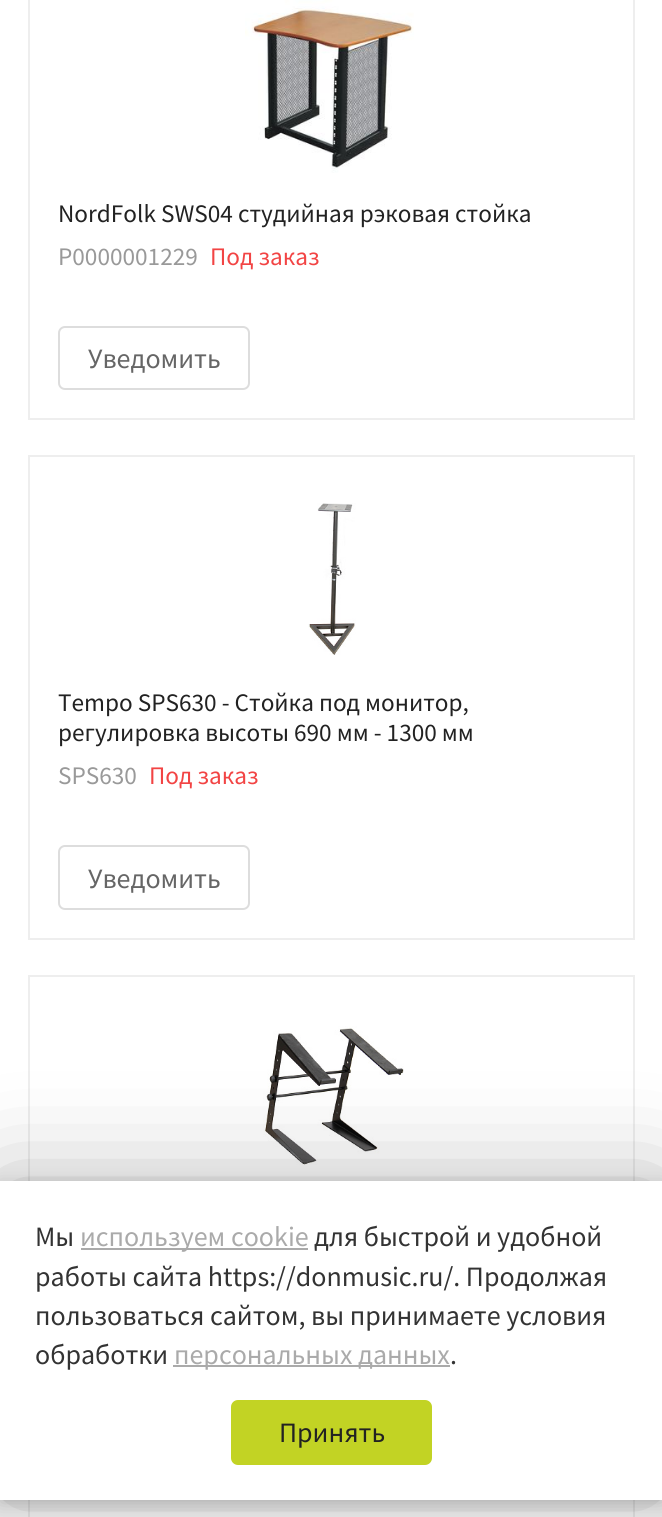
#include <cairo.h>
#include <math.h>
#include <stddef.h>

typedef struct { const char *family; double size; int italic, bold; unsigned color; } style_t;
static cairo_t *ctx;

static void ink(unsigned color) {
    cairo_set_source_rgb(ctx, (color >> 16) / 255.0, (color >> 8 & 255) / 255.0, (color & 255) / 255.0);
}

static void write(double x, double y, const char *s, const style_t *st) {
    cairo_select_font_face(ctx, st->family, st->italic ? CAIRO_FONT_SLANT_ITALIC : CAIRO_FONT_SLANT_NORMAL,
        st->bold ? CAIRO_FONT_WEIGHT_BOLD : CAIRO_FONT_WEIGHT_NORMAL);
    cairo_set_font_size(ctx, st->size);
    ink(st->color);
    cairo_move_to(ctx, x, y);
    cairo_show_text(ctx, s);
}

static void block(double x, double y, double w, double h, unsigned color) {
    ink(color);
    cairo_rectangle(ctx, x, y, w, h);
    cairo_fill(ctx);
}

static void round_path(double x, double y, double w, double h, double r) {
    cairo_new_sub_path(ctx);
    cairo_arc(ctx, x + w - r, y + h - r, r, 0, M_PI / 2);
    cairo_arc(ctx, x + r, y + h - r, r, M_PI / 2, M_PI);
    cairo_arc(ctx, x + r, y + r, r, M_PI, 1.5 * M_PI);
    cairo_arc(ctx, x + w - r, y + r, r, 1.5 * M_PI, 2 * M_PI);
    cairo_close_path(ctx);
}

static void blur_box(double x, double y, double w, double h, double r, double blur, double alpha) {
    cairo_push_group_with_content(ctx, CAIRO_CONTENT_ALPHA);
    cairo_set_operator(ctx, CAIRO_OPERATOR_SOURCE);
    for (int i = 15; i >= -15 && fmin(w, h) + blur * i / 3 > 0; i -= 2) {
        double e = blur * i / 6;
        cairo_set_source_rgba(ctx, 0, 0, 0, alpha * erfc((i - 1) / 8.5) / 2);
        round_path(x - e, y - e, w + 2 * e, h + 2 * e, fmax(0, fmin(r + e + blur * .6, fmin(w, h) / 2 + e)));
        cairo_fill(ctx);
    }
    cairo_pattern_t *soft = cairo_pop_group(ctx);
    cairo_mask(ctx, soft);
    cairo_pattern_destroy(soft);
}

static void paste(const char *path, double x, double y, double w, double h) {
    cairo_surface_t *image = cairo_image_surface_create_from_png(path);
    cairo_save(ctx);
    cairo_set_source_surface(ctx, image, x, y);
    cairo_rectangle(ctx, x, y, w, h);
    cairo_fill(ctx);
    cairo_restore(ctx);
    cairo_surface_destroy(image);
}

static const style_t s1 = {"Source Sans Pro", 25.25, 0, 0, 0x222222};
static const style_t s2 = {"Source Sans Pro", 25.25, 0, 0, 0x999999};
static const style_t s3 = {"Source Sans Pro", 25.25, 0, 0, 0xf24444};
static const style_t s4 = {"Source Sans Pro", 28, 0, 0, 0x666666};
static const style_t s5 = {"Source Sans Pro", 28, 0, 0, 0x333333};
static const style_t s6 = {"Source Sans Pro", 28, 0, 0, 0xaaaaaa};
static const style_t s7 = {"Source Sans Pro", 28, 0, 0, 0x222222};

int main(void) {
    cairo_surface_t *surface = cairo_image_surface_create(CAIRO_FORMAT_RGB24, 662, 1517);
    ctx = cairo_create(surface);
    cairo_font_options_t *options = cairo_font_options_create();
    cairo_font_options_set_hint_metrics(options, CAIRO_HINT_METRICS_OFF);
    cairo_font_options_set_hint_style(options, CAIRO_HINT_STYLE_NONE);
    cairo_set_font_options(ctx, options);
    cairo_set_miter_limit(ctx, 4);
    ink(0xffffff);
    cairo_paint(ctx);
    cairo_rectangle(ctx, 29, -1, 605, 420);
    ink(0xeeeeee);
    cairo_stroke(ctx);
    paste("pic1.png", 245, 0, 169, 173);
    write(58, 222, "NordFolk SWS04 студийная рэковая стойка", &s1);
    write(58, 265, "Р0000001229", &s2);
    write(210, 265, "Под заказ", &s3);
    round_path(59, 327, 190, 62, 6);
    ink(0xdddddd);
    cairo_stroke(ctx);
    write(88, 368, "Уведомить", &s4);
    cairo_rectangle(ctx, 29, 456, 605, 483);
    ink(0xeeeeee);
    cairo_stroke(ctx);
    paste("pic2.png", 308, 503, 48, 152);
    write(58, 711, "Tempo SPS630 - Стойка под монитор,", &s1);
    write(58, 741, "регулировка высоты 690 мм - 1300 мм", &s1);
    write(58, 784, "SPS630", &s2);
    write(149, 784, "Под заказ", &s3);
    round_path(59, 846, 190, 63, 6);
    ink(0xdddddd);
    cairo_stroke(ctx);
    write(88, 888, "Уведомить", &s4);
    cairo_rectangle(ctx, 29, 976, 605, 483);
    ink(0xeeeeee);
    cairo_stroke(ctx);
    paste("pic3.png", 263, 1026, 141, 139);
    cairo_rectangle(ctx, 29, 1496, 605, 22);
    cairo_stroke(ctx);
    ink(0x000000);
    blur_box(0, 1185, 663, 318, 0, 9, 0.2);
    blur_box(0, 1185, 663, 318, 0, 52.5, 0.3);
    block(0, 1181, 662, 319, 0xffffff);
    write(35, 1246, "Мы", &s5);
    block(81, 1248, 227, 2, 0xaaaaaa);
    write(80, 1246, "используем cookie", &s6);
    write(314, 1246, "для быстрой и удобной", &s5);
    write(35, 1286, "работы сайта https://donmusic.ru/. Продолжая", &s5);
    write(35, 1325, "пользоваться сайтом, вы принимаете условия", &s5);
    write(35, 1364, "обработки", &s5);
    block(173, 1365, 277, 2, 0xaaaaaa);
    write(174, 1364, "персональных данных", &s6);
    write(450, 1364, ".", &s5);
    ink(0xc2d324);
    round_path(232, 1401, 199, 63, 6);
    cairo_fill_preserve(ctx);
    cairo_stroke(ctx);
    write(279, 1442, "Принять", &s7);
    cairo_surface_write_to_png(surface, "screenshot.png");
    cairo_font_options_destroy(options);
    cairo_destroy(ctx);
    cairo_surface_destroy(surface);
    return 0;
}
